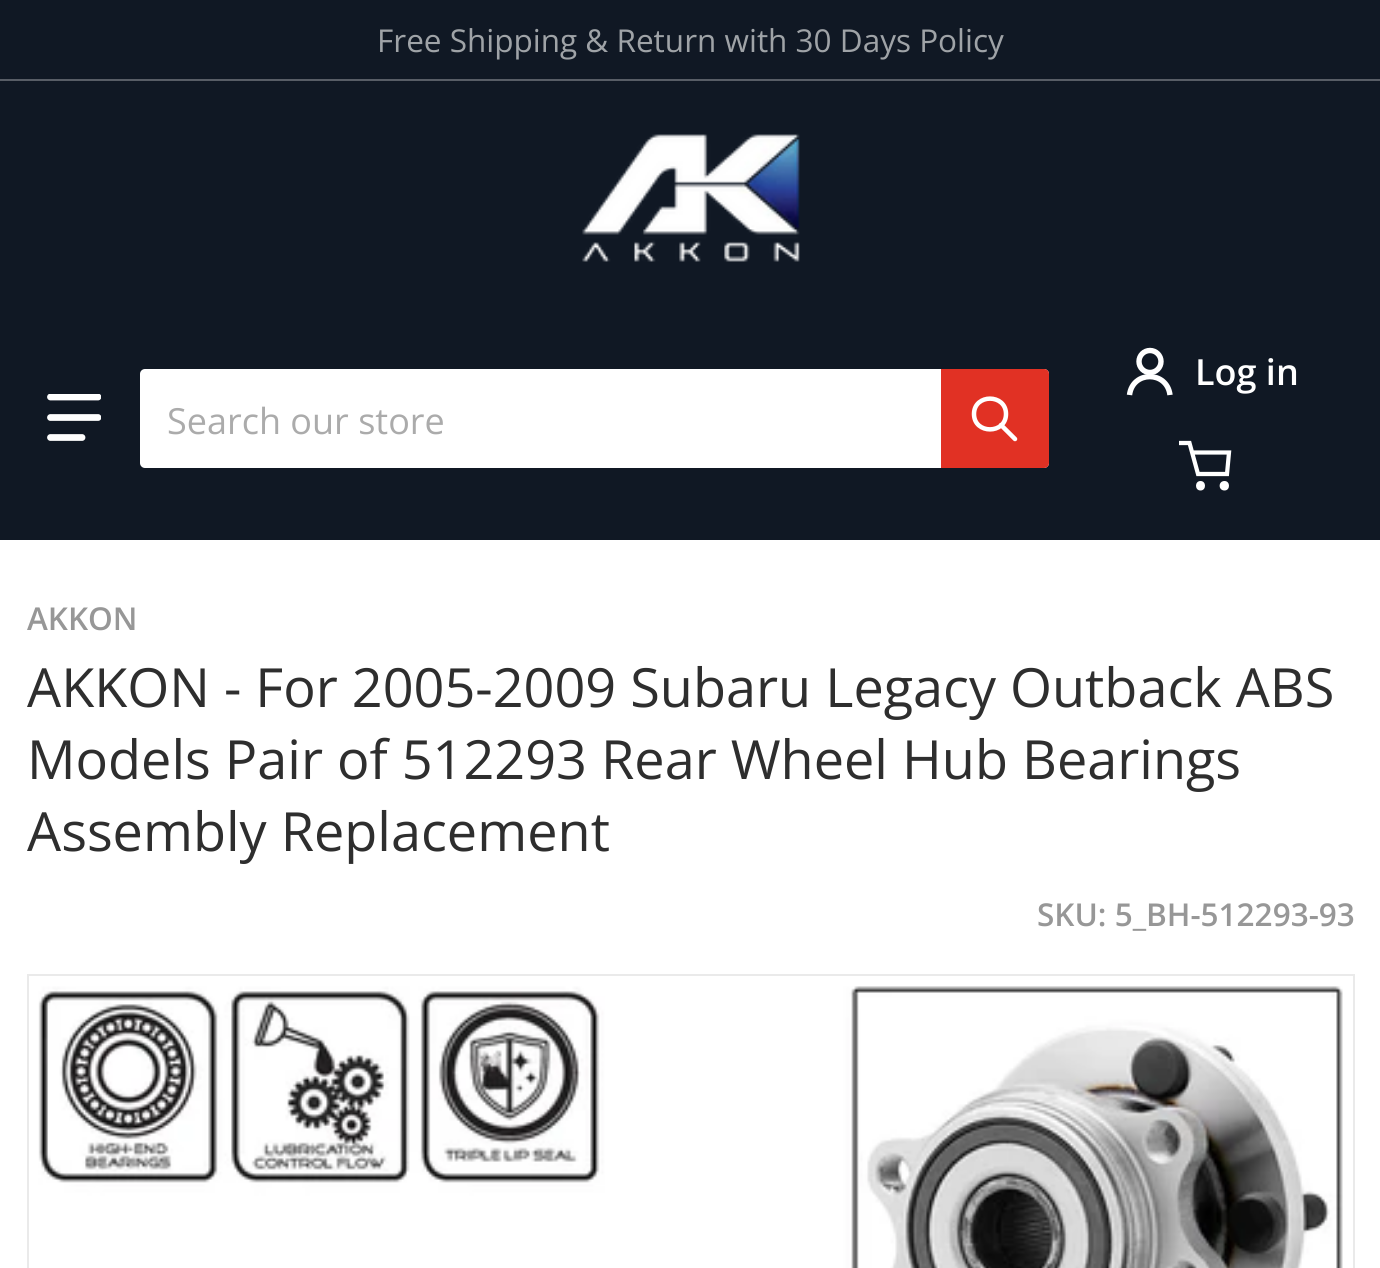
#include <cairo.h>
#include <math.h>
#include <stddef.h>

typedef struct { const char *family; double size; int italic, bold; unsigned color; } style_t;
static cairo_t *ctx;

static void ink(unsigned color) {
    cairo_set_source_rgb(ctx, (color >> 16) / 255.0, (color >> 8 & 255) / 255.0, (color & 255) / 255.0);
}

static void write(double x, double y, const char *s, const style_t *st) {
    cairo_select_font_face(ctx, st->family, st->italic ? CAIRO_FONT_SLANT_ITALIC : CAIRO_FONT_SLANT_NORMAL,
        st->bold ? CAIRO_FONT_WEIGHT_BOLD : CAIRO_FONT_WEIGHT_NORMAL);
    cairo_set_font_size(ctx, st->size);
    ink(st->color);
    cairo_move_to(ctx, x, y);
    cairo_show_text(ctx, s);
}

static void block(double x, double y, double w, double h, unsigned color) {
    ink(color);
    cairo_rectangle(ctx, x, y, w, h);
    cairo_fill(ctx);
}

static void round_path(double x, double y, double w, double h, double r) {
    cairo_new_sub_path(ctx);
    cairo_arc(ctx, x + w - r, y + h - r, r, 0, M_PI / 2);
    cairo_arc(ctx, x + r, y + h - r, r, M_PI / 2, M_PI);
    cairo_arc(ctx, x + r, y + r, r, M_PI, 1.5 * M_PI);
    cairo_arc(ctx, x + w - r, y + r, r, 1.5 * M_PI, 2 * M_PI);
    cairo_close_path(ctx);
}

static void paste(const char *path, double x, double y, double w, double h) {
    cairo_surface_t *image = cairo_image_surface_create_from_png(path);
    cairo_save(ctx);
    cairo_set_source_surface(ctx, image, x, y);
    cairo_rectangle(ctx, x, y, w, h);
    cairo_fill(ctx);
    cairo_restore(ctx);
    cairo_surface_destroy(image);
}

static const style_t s1 = {"Open Sans", 31.5, 0, 0, 0x9fa3a7};
static const style_t s2 = {"Open Sans SemiBold", 36, 0, 0, 0xffffff};
static const style_t s3 = {"Open Sans", 36, 0, 0, 0xababab};
static const style_t s4 = {"Open Sans SemiBold", 31.5, 0, 0, 0x979797};
static const style_t s5 = {"Open Sans", 54, 0, 0, 0x2e2e2e};

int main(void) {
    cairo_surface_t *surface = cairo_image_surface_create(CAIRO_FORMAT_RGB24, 1380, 1268);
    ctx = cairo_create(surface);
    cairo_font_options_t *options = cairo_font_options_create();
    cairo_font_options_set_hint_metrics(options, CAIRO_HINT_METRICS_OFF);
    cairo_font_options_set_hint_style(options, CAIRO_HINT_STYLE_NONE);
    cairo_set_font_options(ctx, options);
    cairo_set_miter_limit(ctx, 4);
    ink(0xffffff);
    cairo_paint(ctx);
    block(0, 0, 1380, 79, 0x101824);
    block(0, 79, 1380, 2, 0x585d66);
    write(377, 52, "Free Shipping & Return with 30 Days Policy", &s1);
    block(0, 81, 1380, 459, 0x101824);
    paste("pic1.png", 582, 133, 218, 129);
    cairo_save(ctx);
    cairo_rectangle(ctx, 47, 394, 54, 49);
    cairo_clip(ctx);
    cairo_new_path(ctx);
    cairo_move_to(ctx, 50.5, 397);
    cairo_line_to(ctx, 98, 397);
    cairo_move_to(ctx, 50.5, 417.5);
    cairo_line_to(ctx, 98, 417.5);
    ink(0xffffff);
    cairo_set_line_width(ctx, 6.8);
    cairo_set_line_cap(ctx, CAIRO_LINE_CAP_ROUND);
    cairo_stroke(ctx);
    cairo_restore(ctx);
    cairo_new_path(ctx);
    cairo_move_to(ctx, 50.5, 437.5);
    cairo_line_to(ctx, 82, 437.5);
    ink(0xffffff);
    cairo_set_line_width(ctx, 6.8);
    cairo_set_line_cap(ctx, CAIRO_LINE_CAP_ROUND);
    cairo_stroke(ctx);
    cairo_arc(ctx, 1150, 361.5, 11, 0, 2 * M_PI);
    cairo_set_line_width(ctx, 5.4);
    cairo_set_line_cap(ctx, CAIRO_LINE_CAP_BUTT);
    cairo_stroke(ctx);
    cairo_new_path(ctx);
    cairo_move_to(ctx, 1170, 395);
    cairo_curve_to(ctx, 1167, 370.5, 1132.5, 370.5, 1129.5, 395);
    cairo_stroke(ctx);
    write(1195, 385, "Log in", &s2);
    cairo_new_path(ctx);
    cairo_move_to(ctx, 1179, 443);
    cairo_line_to(ctx, 1189.5, 443);
    cairo_line_to(ctx, 1198, 474);
    cairo_line_to(ctx, 1227, 474);
    cairo_line_to(ctx, 1229, 452.5);
    cairo_line_to(ctx, 1193.5, 452.5);
    cairo_set_line_width(ctx, 4.2);
    cairo_stroke(ctx);
    cairo_new_path(ctx);
    cairo_move_to(ctx, 1200.5, 490.5);
    cairo_curve_to(ctx, 1206.5, 490.5, 1206.5, 481, 1200.5, 481);
    cairo_curve_to(ctx, 1194.5, 481, 1194.5, 490.5, 1200.5, 490.5);
    cairo_close_path(ctx);
    cairo_move_to(ctx, 1224.5, 490.5);
    cairo_curve_to(ctx, 1230.5, 490.5, 1230.5, 481, 1224.5, 481);
    cairo_curve_to(ctx, 1218, 481, 1218, 490.5, 1224.5, 490.5);
    cairo_close_path(ctx);
    cairo_fill(ctx);
    round_path(140, 369, 909, 99, 5);
    cairo_fill(ctx);
    write(167, 434, "Search our store", &s3);
    ink(0xe13124);
    cairo_new_path(ctx);
    cairo_move_to(ctx, 941, 369);
    cairo_line_to(ctx, 1044, 369);
    cairo_curve_to(ctx, 1047, 369, 1049, 371, 1049, 374);
    cairo_line_to(ctx, 1049, 463);
    cairo_curve_to(ctx, 1049, 466, 1047, 468, 1044, 468);
    cairo_line_to(ctx, 941, 468);
    cairo_close_path(ctx);
    cairo_fill(ctx);
    cairo_new_path(ctx);
    cairo_move_to(ctx, 1015, 439);
    cairo_line_to(ctx, 1001, 425);
    cairo_move_to(ctx, 1006, 414);
    cairo_curve_to(ctx, 1006, 434.5, 974, 434.5, 974, 414);
    cairo_curve_to(ctx, 974, 393.5, 1006, 393.5, 1006, 414);
    cairo_close_path(ctx);
    ink(0xffffff);
    cairo_set_line_width(ctx, 4.5);
    cairo_set_line_cap(ctx, CAIRO_LINE_CAP_ROUND);
    cairo_set_line_join(ctx, CAIRO_LINE_JOIN_ROUND);
    cairo_stroke(ctx);
    write(27, 630, "AKKON", &s4);
    write(27, 707, "AKKON - For 2005-2009 Subaru Legacy Outback ABS", &s5);
    write(27, 779, "Models Pair of 512293 Rear Wheel Hub Bearings", &s5);
    write(27, 851, "Assembly Replacement", &s5);
    write(1037, 926, "SKU: 5_BH-512293-93", &s4);
    cairo_rectangle(ctx, 28, 975, 1326, 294);
    ink(0xeaeaea);
    cairo_set_line_width(ctx, 2);
    cairo_set_line_cap(ctx, CAIRO_LINE_CAP_BUTT);
    cairo_set_line_join(ctx, CAIRO_LINE_JOIN_MITER);
    cairo_stroke(ctx);
    paste("pic2.png", 38, 986, 1305, 282);
    cairo_surface_write_to_png(surface, "screenshot.png");
    cairo_font_options_destroy(options);
    cairo_destroy(ctx);
    cairo_surface_destroy(surface);
    return 0;
}
